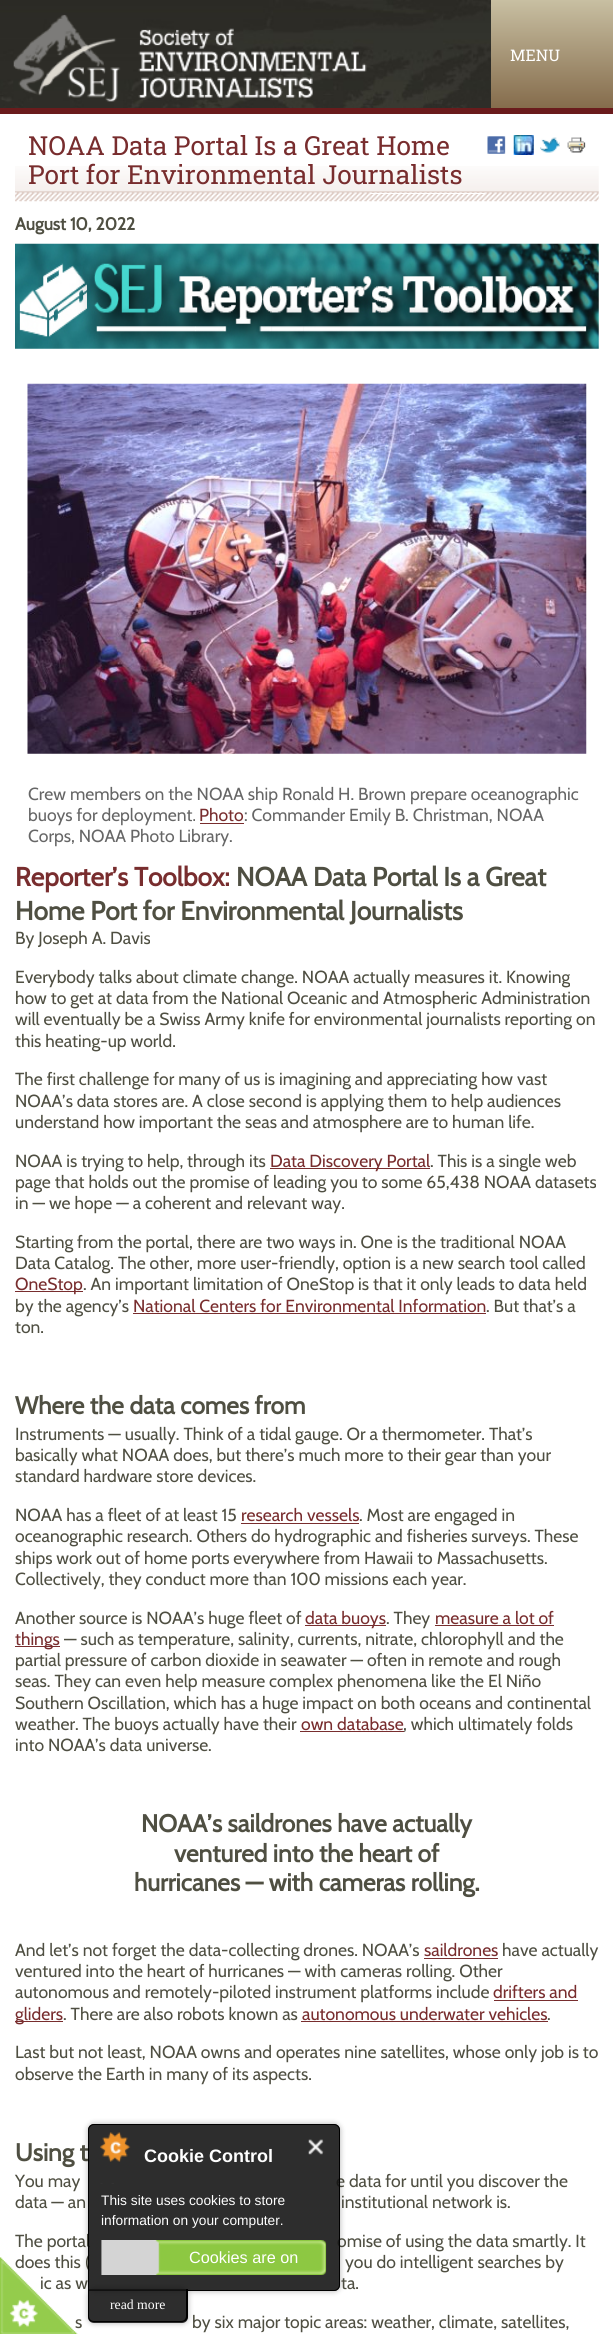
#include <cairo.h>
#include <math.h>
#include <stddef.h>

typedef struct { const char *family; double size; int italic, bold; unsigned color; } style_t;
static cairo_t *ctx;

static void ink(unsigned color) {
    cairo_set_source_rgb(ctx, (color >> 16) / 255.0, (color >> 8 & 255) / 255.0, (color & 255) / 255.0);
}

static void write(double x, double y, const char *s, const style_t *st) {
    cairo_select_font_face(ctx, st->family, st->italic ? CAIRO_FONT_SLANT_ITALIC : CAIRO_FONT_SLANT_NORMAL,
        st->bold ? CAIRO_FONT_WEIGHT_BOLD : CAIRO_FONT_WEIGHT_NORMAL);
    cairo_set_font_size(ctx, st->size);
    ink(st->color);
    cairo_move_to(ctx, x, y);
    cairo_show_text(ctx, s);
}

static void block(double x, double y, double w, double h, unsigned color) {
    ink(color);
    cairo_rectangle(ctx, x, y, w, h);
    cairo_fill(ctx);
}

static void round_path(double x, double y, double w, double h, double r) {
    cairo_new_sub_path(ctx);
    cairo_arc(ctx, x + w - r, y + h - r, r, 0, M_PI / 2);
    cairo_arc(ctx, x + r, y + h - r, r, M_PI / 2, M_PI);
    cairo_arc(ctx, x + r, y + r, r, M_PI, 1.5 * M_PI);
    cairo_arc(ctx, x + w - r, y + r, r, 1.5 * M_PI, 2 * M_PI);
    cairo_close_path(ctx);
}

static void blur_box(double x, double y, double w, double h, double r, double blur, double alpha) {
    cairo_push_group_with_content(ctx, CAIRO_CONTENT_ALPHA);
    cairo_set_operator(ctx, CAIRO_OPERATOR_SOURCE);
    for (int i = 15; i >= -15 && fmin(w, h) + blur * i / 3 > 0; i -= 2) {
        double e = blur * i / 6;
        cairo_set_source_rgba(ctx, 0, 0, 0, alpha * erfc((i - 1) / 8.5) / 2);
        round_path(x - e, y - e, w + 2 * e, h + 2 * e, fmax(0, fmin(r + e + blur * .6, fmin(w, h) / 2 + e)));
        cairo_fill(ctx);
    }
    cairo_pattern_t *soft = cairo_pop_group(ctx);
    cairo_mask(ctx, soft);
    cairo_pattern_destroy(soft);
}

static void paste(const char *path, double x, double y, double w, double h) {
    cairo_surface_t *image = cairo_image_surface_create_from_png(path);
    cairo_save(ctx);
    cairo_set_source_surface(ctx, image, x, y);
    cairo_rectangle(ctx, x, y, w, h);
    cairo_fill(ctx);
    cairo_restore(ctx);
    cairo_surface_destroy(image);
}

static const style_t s1 = {"Roboto Slab", 16, 0, 0, 0xffffff};
static const style_t s2 = {"Roboto Slab", 26.25, 0, 0, 0x782d2e};
static const style_t s3 = {"Cabin", 17.5, 0, 1, 0x4f4f42};
static const style_t s4 = {"Cabin", 17.5, 0, 0, 0x666666};
static const style_t s5 = {"Cabin", 17.5, 0, 0, 0x782d2e};
static const style_t s6 = {"Cabin", 26.25, 0, 1, 0x782d2e};
static const style_t s7 = {"Cabin", 26.25, 0, 1, 0x4f4f42};
static const style_t s8 = {"Cabin", 17.5, 0, 0, 0x4f4f42};
static const style_t s9 = {"Cabin", 24.5, 0, 1, 0x4f4f42};
static const style_t s10 = {"Liberation Sans", 18, 0, 1, 0xffffff};
static const style_t s11 = {"Liberation Sans", 13.75, 0, 0, 0xffffff};
static const style_t s12 = {"Liberation Sans", 16.25, 0, 0, 0xffffff};
static const style_t s13 = {"Liberation Serif", 13.75, 0, 0, 0xffffff};

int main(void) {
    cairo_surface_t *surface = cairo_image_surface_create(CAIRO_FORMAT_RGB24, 613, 2334);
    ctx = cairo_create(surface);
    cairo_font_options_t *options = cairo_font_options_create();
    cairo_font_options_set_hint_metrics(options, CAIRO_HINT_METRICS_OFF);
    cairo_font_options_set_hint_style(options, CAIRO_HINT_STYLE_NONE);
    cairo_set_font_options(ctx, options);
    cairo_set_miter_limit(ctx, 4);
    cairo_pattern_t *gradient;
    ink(0xffffff);
    cairo_paint(ctx);
    paste("pic1.png", 0, 0, 491, 108);
    block(0, 108, 613, 6, 0x6a1b1c);
    paste("pic2.png", 13, 14, 354, 88);
    gradient = cairo_pattern_create_linear(553, 0, 553, 108);
    cairo_pattern_add_color_stop_rgba(gradient, 0, 0.784, 0.749, 0.635, 1);
    cairo_pattern_add_color_stop_rgba(gradient, 1, 0.522, 0.424, 0.298, 1);
    cairo_set_source(ctx, gradient);
    cairo_pattern_destroy(gradient);
    cairo_rectangle(ctx, 491, 0, 122, 108);
    cairo_fill(ctx);
    write(510, 61, "MENU", &s1);
    paste("pic3.png", 15, 166, 584, 36);
    block(370, 193, 115, 1, 0xffffff);
    write(28, 155, "NOAA Data Portal Is a Great Home", &s2);
    paste("pic4.png", 487, 136, 19, 18);
    paste("pic5.png", 513, 135, 21, 20);
    paste("pic6.png", 540, 137, 20, 16);
    paste("pic7.png", 567, 137, 19, 16);
    write(28, 184, "Port for Environmental Journalists", &s2);
    write(15, 230, "August 10, 2022", &s3);
    paste("pic8.png", 15, 243, 584, 106);
    paste("pic9.png", 27, 383, 560, 371);
    write(28, 800, "Crew members on the NOAA ship Ronald H. Brown prepare oceanographic", &s4);
    write(28, 821, "buoys for deployment.", &s4);
    write(199, 821, "Photo", &s5);
    block(200, 823, 44, 1, 0x782d2e);
    write(244, 821, ": Commander Emily B. Christman, NOAA", &s4);
    write(28, 842, "Corps, NOAA Photo Library.", &s4);
    write(15, 886, "Reporter’s Toolbox:", &s6);
    write(236, 886, "NOAA Data Portal Is a Great", &s7);
    write(15, 920, "Home Port for Environmental Journalists", &s7);
    write(15, 944, "By Joseph A. Davis", &s8);
    write(15, 983, "Everybody talks about climate change. NOAA actually measures it. Knowing", &s8);
    write(15, 1004, "how to get at data from the National Oceanic and Atmospheric Administration", &s8);
    write(15, 1025, "will eventually be a Swiss Army knife for environmental journalists reporting on", &s8);
    write(15, 1047, "this heating-up world.", &s8);
    write(15, 1085, "The first challenge for many of us is imagining and appreciating how vast", &s8);
    write(15, 1107, "NOAA’s data stores are. A close second is applying them to help audiences", &s8);
    write(15, 1128, "understand how important the seas and atmosphere are to human life.", &s8);
    write(15, 1167, "NOAA is trying to help, through its", &s8);
    block(270, 1168, 160, 1, 0x782d2e);
    write(270, 1167, "Data Discovery Portal", &s5);
    write(430, 1167, ". This is a single web", &s8);
    write(15, 1188, "page that holds out the promise of leading you to some 65,438 NOAA datasets", &s8);
    write(15, 1209, "in — we hope — a coherent and relevant way.", &s8);
    write(15, 1248, "Starting from the portal, there are two ways in. One is the traditional NOAA", &s8);
    write(15, 1269, "Data Catalog. The other, more user-friendly, option is a new search tool called", &s8);
    block(15, 1291, 68, 1, 0x782d2e);
    write(15, 1290, "OneStop", &s5);
    write(83, 1290, ". An important limitation of OneStop is that it only leads to data held", &s8);
    write(15, 1312, "by the agency’s", &s8);
    write(133, 1312, "National Centers for Environmental Information", &s5);
    block(133, 1313, 353, 1, 0x782d2e);
    write(486, 1312, ". But that’s a", &s8);
    write(15, 1333, "ton.", &s8);
    write(15, 1414, "Where the data comes from", &s9);
    write(15, 1440, "Instruments — usually. Think of a tidal gauge. Or a thermometer. That’s", &s8);
    write(15, 1461, "basically what NOAA does, but there’s much more to their gear than your", &s8);
    write(15, 1482, "standard hardware store devices.", &s8);
    write(15, 1521, "NOAA has a fleet of at least 15", &s8);
    write(241, 1521, "research vessels", &s5);
    block(241, 1523, 118, 1, 0x782d2e);
    write(359, 1521, ". Most are engaged in", &s8);
    write(15, 1542, "oceanographic research. Others do hydrographic and fisheries surveys. These", &s8);
    write(15, 1564, "ships work out of home ports everywhere from Hawaii to Massachusetts.", &s8);
    write(15, 1585, "Collectively, they conduct more than 100 missions each year.", &s8);
    write(15, 1624, "Another source is NOAA’s huge fleet of", &s8);
    block(305, 1625, 81, 1, 0x782d2e);
    write(305, 1624, "data buoys", &s5);
    write(386, 1624, ". They", &s8);
    write(435, 1624, "measure a lot of", &s5);
    block(435, 1625, 119, 1, 0x782d2e);
    block(15, 1646, 45, 1, 0x782d2e);
    write(15, 1645, "things", &s5);
    write(64, 1645, "— such as temperature, salinity, currents, nitrate, chlorophyll and the", &s8);
    write(15, 1666, "partial pressure of carbon dioxide in seawater — often in remote and rough", &s8);
    write(15, 1687, "seas. They can even help measure complex phenomena like the El Niño", &s8);
    write(15, 1709, "Southern Oscillation, which has a huge impact on both oceans and continental", &s8);
    write(15, 1730, "weather. The buoys actually have their", &s8);
    write(301, 1730, "own database", &s5);
    block(300, 1731, 104, 1, 0x782d2e);
    write(403, 1730, ", which ultimately folds", &s8);
    write(15, 1751, "into NOAA’s data universe.", &s8);
    write(141, 1832, "NOAA’s saildrones have actually", &s9);
    write(174, 1862, "ventured into the heart of", &s9);
    write(134, 1891, "hurricanes — with cameras rolling.", &s9);
    write(15, 1956, "And let’s not forget the data-collecting drones. NOAA’s", &s8);
    write(424, 1956, "saildrones", &s5);
    block(424, 1958, 74, 1, 0x782d2e);
    write(502, 1956, "have actually", &s8);
    write(15, 1977, "ventured into the heart of hurricanes — with cameras rolling. Other", &s8);
    write(15, 1998, "autonomous and remotely-piloted instrument platforms include", &s8);
    write(493, 1998, "drifters and", &s5);
    block(494, 2000, 84, 1, 0x782d2e);
    block(15, 2021, 48, 1, 0x782d2e);
    write(15, 2020, "gliders", &s5);
    write(63, 2020, ". There are also robots known as", &s8);
    write(302, 2020, "autonomous underwater vehicles", &s5);
    block(301, 2021, 247, 1, 0x782d2e);
    write(547, 2020, ".", &s8);
    write(15, 2058, "Last but not least, NOAA owns and operates nine satellites, whose only job is to", &s8);
    write(15, 2080, "observe the Earth in many of its aspects.", &s8);
    write(15, 2161, "Using t", &s9);
    write(15, 2187, "You may", &s8);
    write(336, 2187, "e data for until you discover the", &s8);
    write(15, 2208, "data — an", &s8);
    write(341, 2208, "institutional network is.", &s8);
    write(15, 2247, "The portal", &s8);
    write(337, 2247, "omise of using the data smartly. It", &s8);
    write(15, 2268, "does this (", &s8);
    write(345, 2268, "you do intelligent searches by", &s8);
    write(40, 2289, "ic as w", &s8);
    write(341, 2289, "ta.", &s8);
    write(75, 2328, "s", &s8);
    write(192, 2328, "by six major topic areas: weather, climate, satellites,", &s8);
    paste("pic10.png", 0, 2257, 78, 77);
    cairo_save(ctx);
    cairo_set_fill_rule(ctx, CAIRO_FILL_RULE_EVEN_ODD);
    cairo_new_path(ctx);
    cairo_move_to(ctx, 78, 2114);
    cairo_line_to(ctx, 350, 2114);
    cairo_line_to(ctx, 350, 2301);
    cairo_line_to(ctx, 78, 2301);
    cairo_close_path(ctx);
    cairo_move_to(ctx, 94, 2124);
    cairo_line_to(ctx, 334, 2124);
    cairo_curve_to(ctx, 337.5, 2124, 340, 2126.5, 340, 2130);
    cairo_line_to(ctx, 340, 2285);
    cairo_curve_to(ctx, 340, 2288.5, 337.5, 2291, 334, 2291);
    cairo_line_to(ctx, 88, 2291);
    cairo_line_to(ctx, 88, 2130);
    cairo_curve_to(ctx, 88, 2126.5, 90.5, 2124, 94, 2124);
    cairo_close_path(ctx);
    cairo_clip(ctx);
    ink(0x000000);
    blur_box(88, 2124, 252, 167, 6, 3, 0.3);
    cairo_restore(ctx);
    cairo_set_source_rgba(ctx, 0.078, 0.078, 0.078, 0.89);
    cairo_new_path(ctx);
    cairo_move_to(ctx, 94, 2124);
    cairo_line_to(ctx, 334, 2124);
    cairo_curve_to(ctx, 337.5, 2124, 340, 2126.5, 340, 2130);
    cairo_line_to(ctx, 340, 2285);
    cairo_curve_to(ctx, 340, 2288.5, 337.5, 2291, 334, 2291);
    cairo_line_to(ctx, 88, 2291);
    cairo_line_to(ctx, 88, 2130);
    cairo_curve_to(ctx, 88, 2126.5, 90.5, 2124, 94, 2124);
    cairo_close_path(ctx);
    cairo_fill(ctx);
    cairo_new_path(ctx);
    cairo_move_to(ctx, 94, 2124.5);
    cairo_line_to(ctx, 334, 2124.5);
    cairo_curve_to(ctx, 337, 2124.5, 339.5, 2127, 339.5, 2130);
    cairo_line_to(ctx, 339.5, 2285);
    cairo_curve_to(ctx, 339.5, 2288, 337, 2290.5, 334, 2290.5);
    cairo_line_to(ctx, 88.5, 2290.5);
    cairo_line_to(ctx, 88.5, 2130);
    cairo_curve_to(ctx, 88.5, 2127, 91, 2124.5, 94, 2124.5);
    cairo_close_path(ctx);
    cairo_set_source_rgba(ctx, 0, 0, 0, 0.99);
    cairo_set_line_width(ctx, 1);
    cairo_stroke(ctx);
    paste("pic11.png", 100, 2132, 31, 52);
    write(144, 2162, "Cookie Control", &s10);
    paste("pic12.png", 308, 2139, 16, 16);
    write(101, 2205, "This site uses cookies to store", &s11);
    write(101, 2225, "information on your computer.", &s11);
    paste("pic13.png", 101, 2240, 226, 35);
    write(189, 2263, "Cookies are on", &s12);
    cairo_save(ctx);
    cairo_set_fill_rule(ctx, CAIRO_FILL_RULE_EVEN_ODD);
    cairo_new_path(ctx);
    cairo_move_to(ctx, 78, 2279);
    cairo_line_to(ctx, 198, 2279);
    cairo_line_to(ctx, 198, 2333);
    cairo_line_to(ctx, 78, 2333);
    cairo_close_path(ctx);
    cairo_move_to(ctx, 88, 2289);
    cairo_line_to(ctx, 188, 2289);
    cairo_line_to(ctx, 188, 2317);
    cairo_curve_to(ctx, 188, 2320.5, 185.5, 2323, 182, 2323);
    cairo_line_to(ctx, 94, 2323);
    cairo_curve_to(ctx, 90.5, 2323, 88, 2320.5, 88, 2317);
    cairo_close_path(ctx);
    cairo_clip(ctx);
    ink(0x000000);
    blur_box(88, 2289, 100, 34, 6, 3, 0.3);
    cairo_restore(ctx);
    cairo_set_source_rgba(ctx, 0.078, 0.078, 0.078, 0.89);
    cairo_new_path(ctx);
    cairo_move_to(ctx, 88, 2289);
    cairo_line_to(ctx, 188, 2289);
    cairo_line_to(ctx, 188, 2317);
    cairo_curve_to(ctx, 188, 2320.5, 185.5, 2323, 182, 2323);
    cairo_line_to(ctx, 94, 2323);
    cairo_curve_to(ctx, 90.5, 2323, 88, 2320.5, 88, 2317);
    cairo_close_path(ctx);
    cairo_fill(ctx);
    cairo_set_source_rgba(ctx, 0, 0, 0, 0.99);
    cairo_set_fill_rule(ctx, CAIRO_FILL_RULE_EVEN_ODD);
    cairo_new_path(ctx);
    cairo_move_to(ctx, 88, 2289);
    cairo_line_to(ctx, 188, 2289);
    cairo_line_to(ctx, 188, 2316);
    cairo_curve_to(ctx, 188, 2320, 185, 2322, 181, 2322);
    cairo_line_to(ctx, 94, 2322);
    cairo_curve_to(ctx, 90, 2322, 88, 2320, 88, 2316);
    cairo_close_path(ctx);
    cairo_move_to(ctx, 89, 2289);
    cairo_line_to(ctx, 186, 2289);
    cairo_line_to(ctx, 186, 2316);
    cairo_curve_to(ctx, 186, 2319, 184, 2321, 181, 2321);
    cairo_line_to(ctx, 94, 2321);
    cairo_curve_to(ctx, 91, 2321, 89, 2319, 89, 2316);
    cairo_close_path(ctx);
    cairo_fill(ctx);
    write(110, 2309, "read more", &s13);
    cairo_surface_write_to_png(surface, "screenshot.png");
    cairo_font_options_destroy(options);
    cairo_destroy(ctx);
    cairo_surface_destroy(surface);
    return 0;
}
